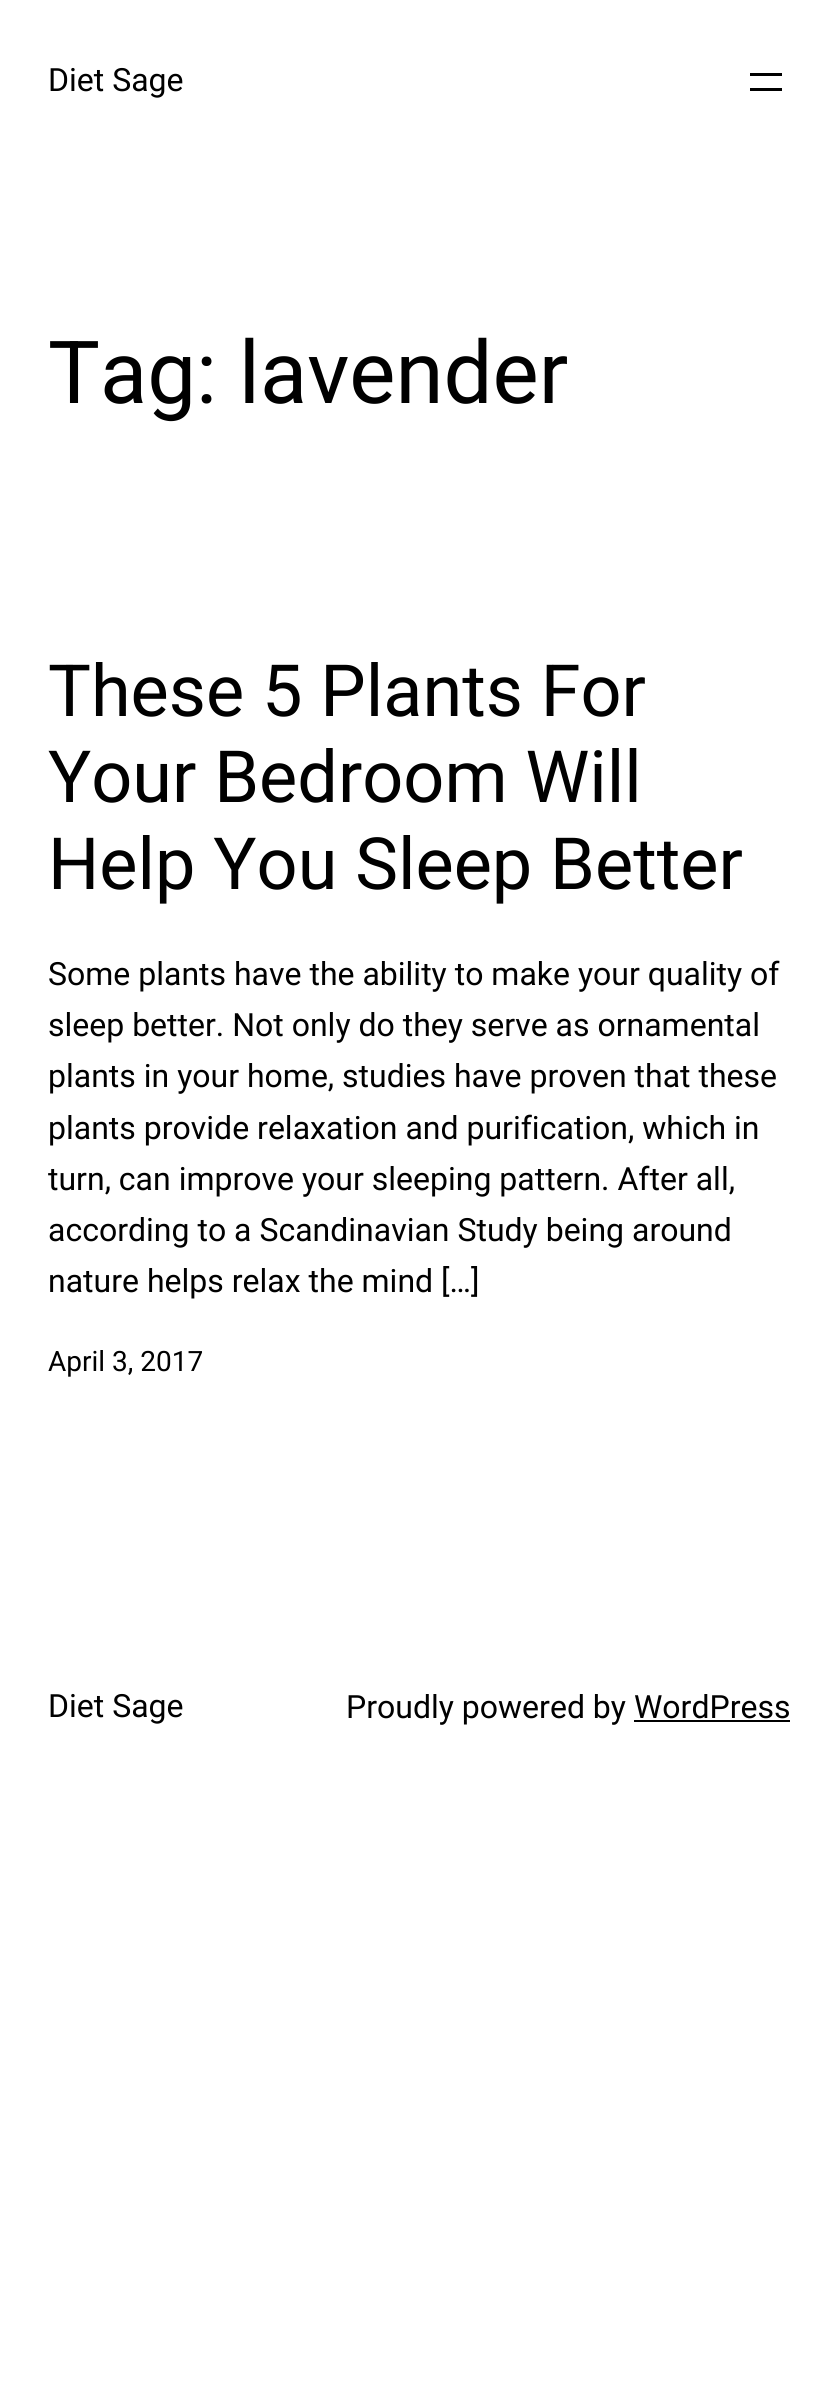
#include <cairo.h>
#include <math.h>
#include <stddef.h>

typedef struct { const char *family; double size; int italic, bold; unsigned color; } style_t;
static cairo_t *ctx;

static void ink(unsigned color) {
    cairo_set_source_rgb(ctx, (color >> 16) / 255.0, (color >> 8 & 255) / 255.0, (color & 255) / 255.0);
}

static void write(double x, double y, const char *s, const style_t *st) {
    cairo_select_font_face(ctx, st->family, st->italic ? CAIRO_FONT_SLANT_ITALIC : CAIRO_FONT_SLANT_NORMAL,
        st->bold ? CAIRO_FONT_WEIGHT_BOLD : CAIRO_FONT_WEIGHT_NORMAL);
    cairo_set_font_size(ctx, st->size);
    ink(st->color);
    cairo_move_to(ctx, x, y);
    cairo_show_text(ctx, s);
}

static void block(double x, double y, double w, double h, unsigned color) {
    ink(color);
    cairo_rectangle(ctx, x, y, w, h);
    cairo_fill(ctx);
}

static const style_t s1 = {"Roboto", 32, 0, 0, 0x000000};
static const style_t s2 = {"Roboto", 87, 0, 0, 0x000000};
static const style_t s3 = {"Roboto", 72, 0, 0, 0x000000};
static const style_t s4 = {"Roboto", 28, 0, 0, 0x000000};

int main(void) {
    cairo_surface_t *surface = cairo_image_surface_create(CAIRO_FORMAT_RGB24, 838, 2402);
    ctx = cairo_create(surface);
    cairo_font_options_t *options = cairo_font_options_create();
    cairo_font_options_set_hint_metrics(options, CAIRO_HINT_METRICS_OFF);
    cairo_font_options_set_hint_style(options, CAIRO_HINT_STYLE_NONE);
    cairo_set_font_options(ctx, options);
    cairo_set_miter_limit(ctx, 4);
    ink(0xffffff);
    cairo_paint(ctx);
    write(48, 91, "Diet Sage", &s1);
    block(750, 73, 32, 3, 0x000000);
    block(750, 88, 32, 3, 0x000000);
    write(48, 403, "Tag: lavender", &s2);
    write(48, 716, "These 5 Plants For", &s3);
    write(48, 802, "Your Bedroom Will", &s3);
    write(48, 889, "Help You Sleep Better", &s3);
    write(48, 985, "Some plants have the ability to make your quality of", &s1);
    write(48, 1036, "sleep better. Not only do they serve as ornamental", &s1);
    write(48, 1087, "plants in your home, studies have proven that these", &s1);
    write(48, 1139, "plants provide relaxation and purification, which in", &s1);
    write(48, 1190, "turn, can improve your sleeping pattern. After all,", &s1);
    write(48, 1241, "according to a Scandinavian Study being around", &s1);
    write(48, 1292, "nature helps relax the mind […]", &s1);
    write(48, 1371, "April 3, 2017", &s4);
    write(48, 1717, "Diet Sage", &s1);
    write(346, 1718, "Proudly powered by WordPress", &s1);
    block(634, 1720, 156, 2, 0x000000);
    cairo_surface_write_to_png(surface, "screenshot.png");
    cairo_font_options_destroy(options);
    cairo_destroy(ctx);
    cairo_surface_destroy(surface);
    return 0;
}
